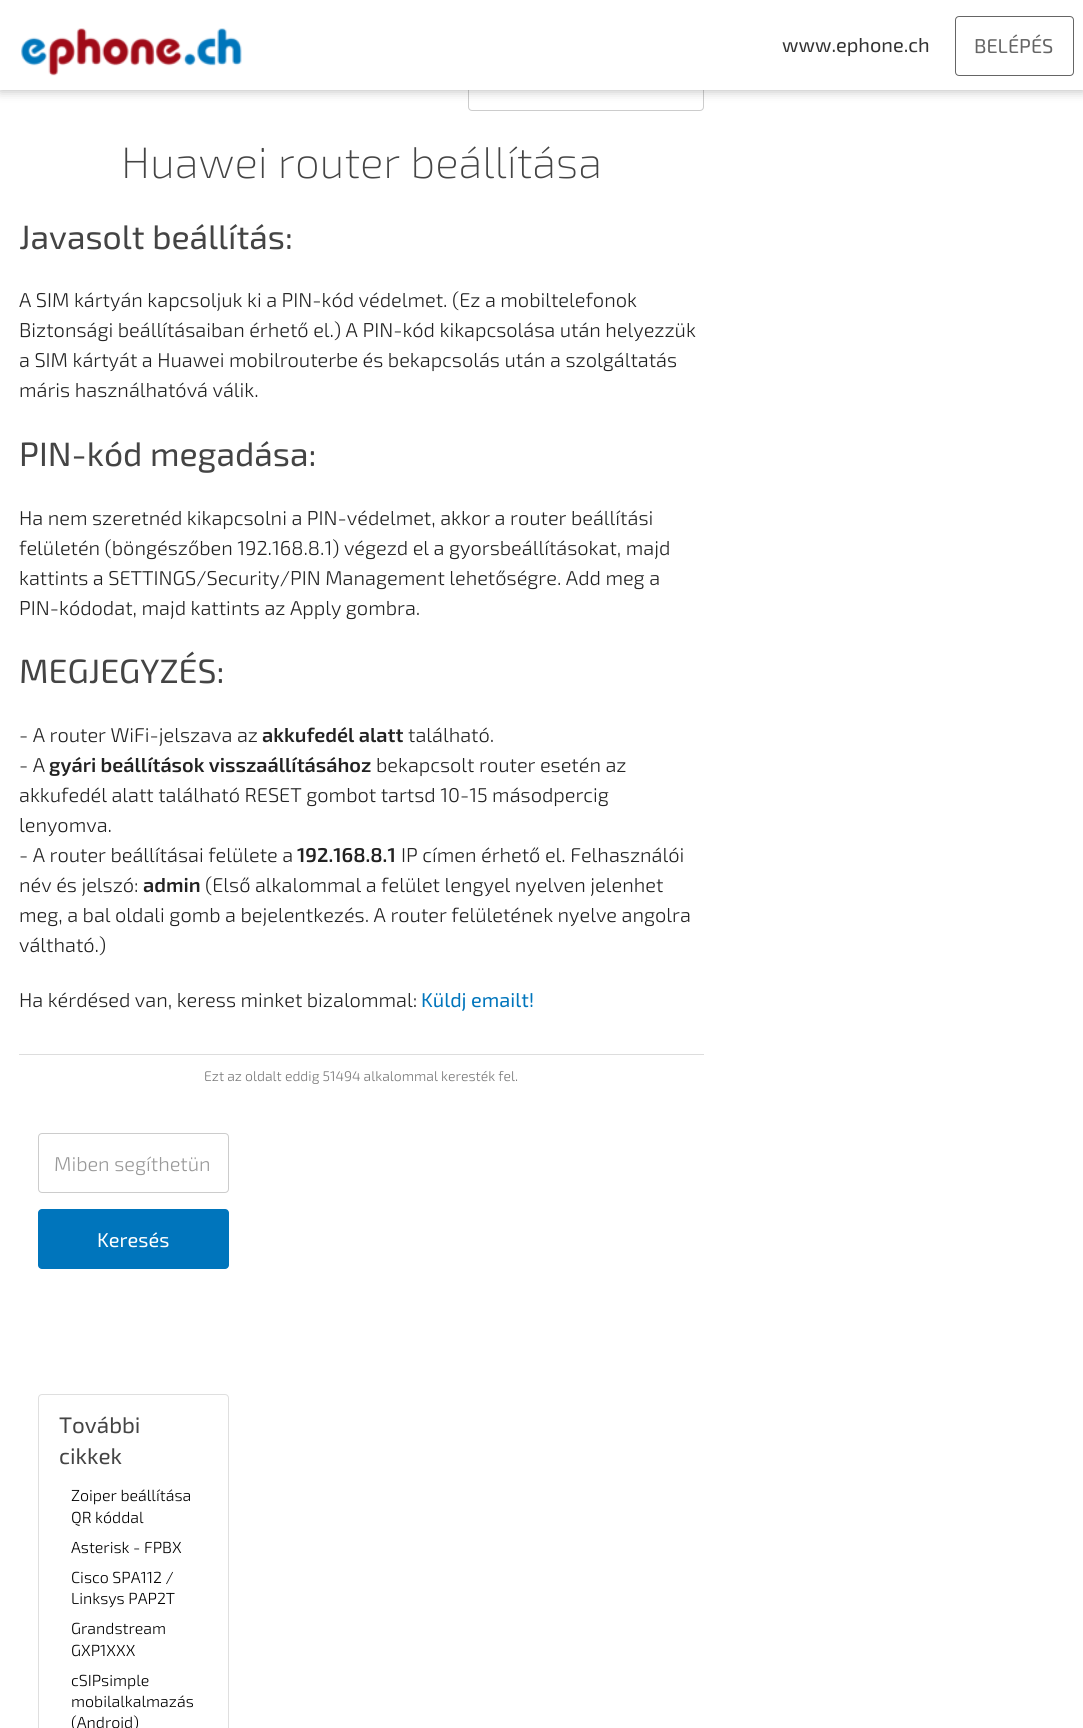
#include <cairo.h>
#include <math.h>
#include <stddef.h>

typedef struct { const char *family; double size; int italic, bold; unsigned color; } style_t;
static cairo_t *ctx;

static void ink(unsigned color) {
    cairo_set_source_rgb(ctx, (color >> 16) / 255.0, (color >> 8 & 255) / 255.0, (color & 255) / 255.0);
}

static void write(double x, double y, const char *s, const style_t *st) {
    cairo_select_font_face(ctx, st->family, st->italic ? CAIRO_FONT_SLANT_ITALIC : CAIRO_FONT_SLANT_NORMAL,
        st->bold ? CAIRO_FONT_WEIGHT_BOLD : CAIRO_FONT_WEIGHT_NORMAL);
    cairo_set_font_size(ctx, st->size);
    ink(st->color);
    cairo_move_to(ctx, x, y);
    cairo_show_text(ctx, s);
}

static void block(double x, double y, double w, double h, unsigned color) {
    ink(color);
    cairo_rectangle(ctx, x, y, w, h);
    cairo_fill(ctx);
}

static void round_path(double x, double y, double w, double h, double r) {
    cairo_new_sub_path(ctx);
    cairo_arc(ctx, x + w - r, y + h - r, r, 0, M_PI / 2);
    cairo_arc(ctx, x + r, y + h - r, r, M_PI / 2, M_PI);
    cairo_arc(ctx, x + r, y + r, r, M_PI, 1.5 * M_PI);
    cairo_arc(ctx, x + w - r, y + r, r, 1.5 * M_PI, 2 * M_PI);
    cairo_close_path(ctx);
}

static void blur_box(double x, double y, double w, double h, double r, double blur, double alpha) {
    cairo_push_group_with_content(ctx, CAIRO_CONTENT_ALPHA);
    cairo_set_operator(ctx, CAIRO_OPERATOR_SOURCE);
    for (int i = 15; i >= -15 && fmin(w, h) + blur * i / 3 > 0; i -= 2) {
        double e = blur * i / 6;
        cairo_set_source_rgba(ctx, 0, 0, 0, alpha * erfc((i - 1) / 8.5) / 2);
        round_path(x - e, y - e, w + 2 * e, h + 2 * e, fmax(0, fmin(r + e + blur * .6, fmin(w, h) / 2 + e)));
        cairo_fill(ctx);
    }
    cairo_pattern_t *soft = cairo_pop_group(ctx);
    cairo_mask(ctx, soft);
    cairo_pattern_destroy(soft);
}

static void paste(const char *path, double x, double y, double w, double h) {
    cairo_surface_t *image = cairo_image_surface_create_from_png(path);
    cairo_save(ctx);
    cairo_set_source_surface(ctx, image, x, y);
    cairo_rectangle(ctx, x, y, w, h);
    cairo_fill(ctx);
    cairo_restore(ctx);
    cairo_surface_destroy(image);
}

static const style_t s1 = {"Exo 2", 20, 0, 0, 0x333333};
static const style_t s2 = {"Exo 2", 20, 0, 0, 0x656565};
static const style_t s3 = {"Exo 2 ExtraLight", 44, 0, 0, 0x444444};
static const style_t s4 = {"Exo 2", 33.75, 0, 0, 0x444444};
static const style_t s5 = {"Exo 2 Light", 20, 0, 0, 0x222222};
static const style_t s6 = {"Exo 2 SemiBold", 20, 0, 0, 0x222222};
static const style_t s7 = {"Exo 2", 20, 0, 0, 0x0075bc};
static const style_t s8 = {"Exo 2 Light", 14, 0, 0, 0x777777};
static const style_t s9 = {"Exo 2 Light", 20, 0, 0, 0x999999};
static const style_t s10 = {"Exo 2", 20, 0, 0, 0xffffff};
static const style_t s11 = {"Exo 2", 22.5, 0, 0, 0x444444};
static const style_t s12 = {"Exo 2 Light", 16, 0, 0, 0x000000};

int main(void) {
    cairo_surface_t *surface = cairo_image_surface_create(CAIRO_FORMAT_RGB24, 1083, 1728);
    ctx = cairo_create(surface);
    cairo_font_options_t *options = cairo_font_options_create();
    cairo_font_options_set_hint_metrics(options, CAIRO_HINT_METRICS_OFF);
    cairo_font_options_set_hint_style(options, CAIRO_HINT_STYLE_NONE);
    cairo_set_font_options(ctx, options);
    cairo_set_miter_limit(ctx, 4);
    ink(0xffffff);
    cairo_paint(ctx);
    round_path(468.5, 38.5, 235, 72, 3.5);
    ink(0xcccccc);
    cairo_set_line_width(ctx, 1);
    cairo_stroke(ctx);
    ink(0x000000);
    blur_box(0, 0, 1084, 90, 0, 6, 0.3);
    block(0, 0, 1083, 90, 0xffffff);
    paste("pic1.png", 21, 28, 221, 48);
    write(782, 52, "www.ephone.ch", &s1);
    round_path(955.5, 16.5, 118, 59, 3.5);
    ink(0x656565);
    cairo_stroke(ctx);
    write(974, 53, "BELÉPÉS", &s2);
    write(121, 178, "Huawei router beállítása", &s3);
    write(19, 249, "Javasolt beállítás:", &s4);
    write(19, 307, "A SIM kártyán kapcsoljuk ki a PIN-kód védelmet. (Ez a mobiltelefonok", &s5);
    write(19, 337, "Biztonsági beállításaiban érhető el.) A PIN-kód kikapcsolása után helyezzük", &s5);
    write(19, 367, "a SIM kártyát a Huawei mobilrouterbe és bekapcsolás után a szolgáltatás", &s5);
    write(19, 397, "máris használhatóvá válik.", &s5);
    write(19, 466, "PIN-kód megadása:", &s4);
    write(19, 525, "Ha nem szeretnéd kikapcsolni a PIN-védelmet, akkor a router beállítási", &s5);
    write(19, 555, "felületén (böngészőben 192.168.8.1) végezd el a gyorsbeállításokat, majd", &s5);
    write(19, 585, "kattints a SETTINGS/Security/PIN Management lehetőségre. Add meg a", &s5);
    write(19, 615, "PIN-kódodat, majd kattints az Apply gombra.", &s5);
    write(19, 683, "MEGJEGYZÉS:", &s4);
    write(19, 742, "- A router WiFi-jelszava az", &s5);
    write(262, 742, "akkufedél alatt", &s6);
    write(408, 742, "található.", &s5);
    write(19, 772, "- A", &s5);
    write(49, 772, "gyári beállítások visszaállításához", &s6);
    write(376, 772, "bekapcsolt router esetén az", &s5);
    write(19, 802, "akkufedél alatt található RESET gombot tartsd 10-15 másodpercig", &s5);
    write(19, 832, "lenyomva.", &s5);
    write(19, 862, "- A router beállításai felülete a", &s5);
    write(297, 862, "192.168.8.1", &s6);
    write(401, 862, "IP címen érhető el. Felhasználói", &s5);
    write(19, 892, "név és jelszó:", &s5);
    write(143, 892, "admin", &s6);
    write(205, 892, "(Első alkalommal a felület lengyel nyelven jelenhet", &s5);
    write(19, 922, "meg, a bal oldali gomb a bejelentkezés. A router felületének nyelve angolra", &s5);
    write(19, 952, "váltható.)", &s5);
    write(19, 1007, "Ha kérdésed van, keress minket bizalommal:", &s5);
    write(421, 1007, "Küldj emailt!", &s7);
    block(19, 1054, 685, 1, 0xdddddd);
    write(204, 1081, "Ezt az oldalt eddig 51494 alkalommal keresték fel.", &s8);
    round_path(38.5, 1133.5, 190, 59, 3.5);
    ink(0xcccccc);
    cairo_stroke(ctx);
    write(54, 1171, "Miben segíthetün", &s9);
    ink(0x0075bc);
    round_path(38, 1209, 191, 60, 4);
    cairo_fill(ctx);
    write(97, 1247, "Keresés", &s10);
    round_path(38.5, 1394.5, 190, 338, 3.5);
    ink(0xdfdfdf);
    cairo_stroke(ctx);
    write(59, 1433, "További", &s11);
    write(59, 1464, "cikkek", &s11);
    write(71, 1501, "Zoiper beállítása", &s12);
    write(71, 1523, "QR kóddal", &s12);
    write(71, 1553, "Asterisk - FPBX", &s12);
    write(71, 1583, "Cisco SPA112 /", &s12);
    write(71, 1604, "Linksys PAP2T", &s12);
    write(71, 1634, "Grandstream", &s12);
    write(71, 1656, "GXP1XXX", &s12);
    write(71, 1686, "cSIPsimple", &s12);
    write(71, 1707, "mobilalkalmazás", &s12);
    write(71, 1728, "(Android)", &s12);
    cairo_surface_write_to_png(surface, "screenshot.png");
    cairo_font_options_destroy(options);
    cairo_destroy(ctx);
    cairo_surface_destroy(surface);
    return 0;
}
